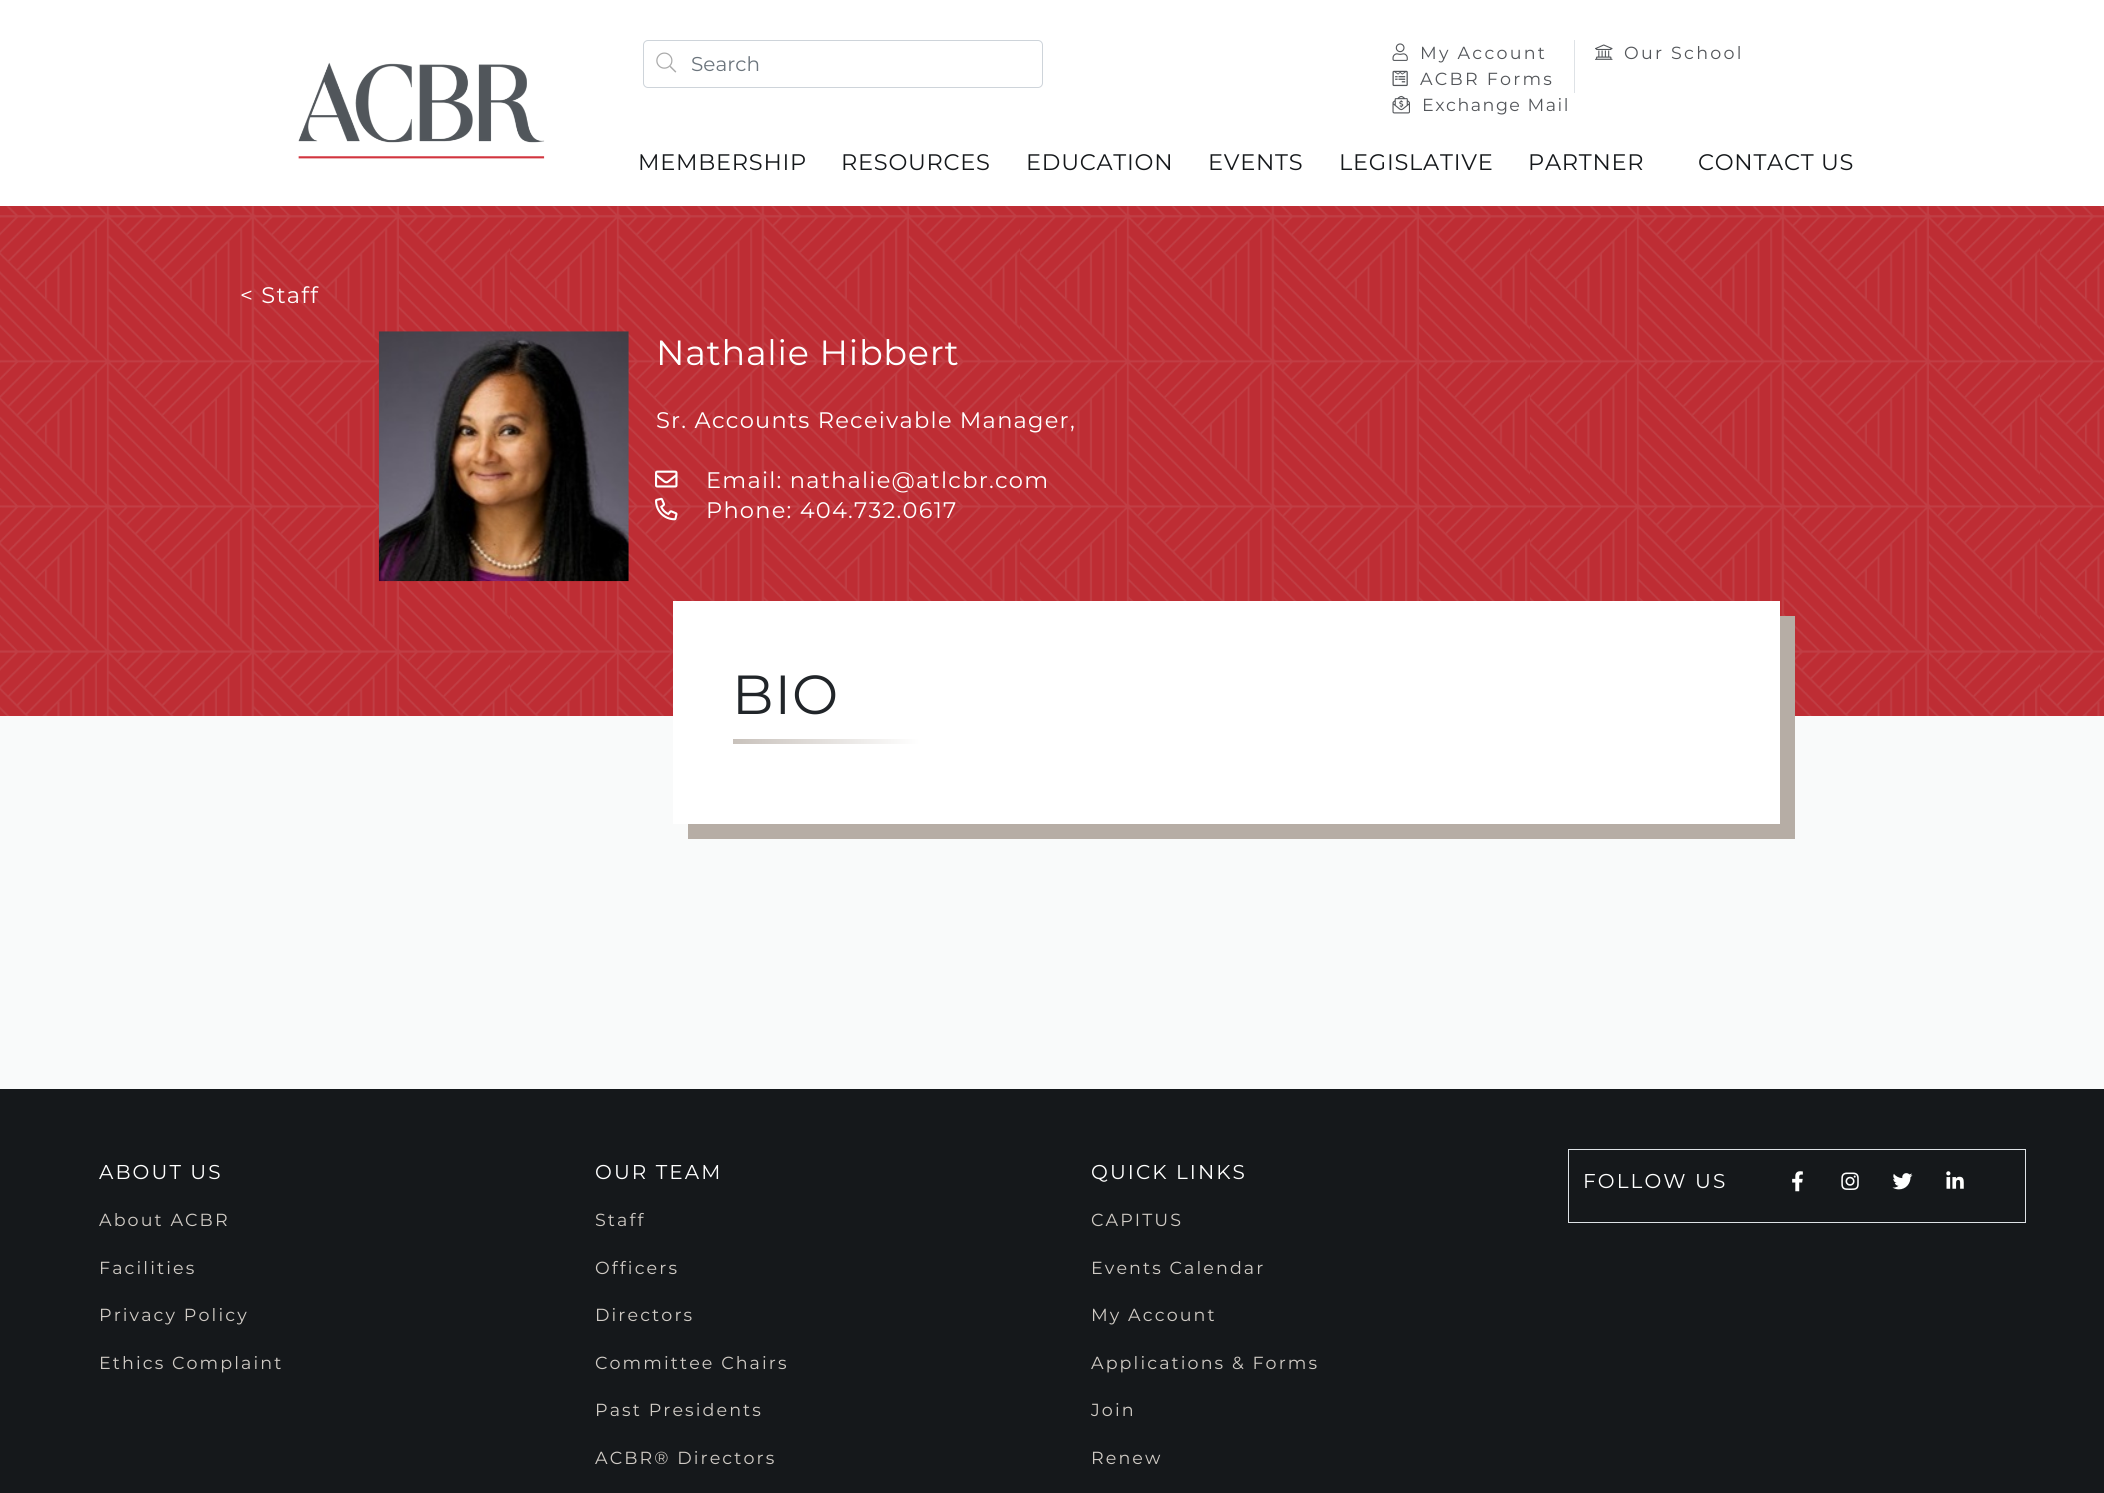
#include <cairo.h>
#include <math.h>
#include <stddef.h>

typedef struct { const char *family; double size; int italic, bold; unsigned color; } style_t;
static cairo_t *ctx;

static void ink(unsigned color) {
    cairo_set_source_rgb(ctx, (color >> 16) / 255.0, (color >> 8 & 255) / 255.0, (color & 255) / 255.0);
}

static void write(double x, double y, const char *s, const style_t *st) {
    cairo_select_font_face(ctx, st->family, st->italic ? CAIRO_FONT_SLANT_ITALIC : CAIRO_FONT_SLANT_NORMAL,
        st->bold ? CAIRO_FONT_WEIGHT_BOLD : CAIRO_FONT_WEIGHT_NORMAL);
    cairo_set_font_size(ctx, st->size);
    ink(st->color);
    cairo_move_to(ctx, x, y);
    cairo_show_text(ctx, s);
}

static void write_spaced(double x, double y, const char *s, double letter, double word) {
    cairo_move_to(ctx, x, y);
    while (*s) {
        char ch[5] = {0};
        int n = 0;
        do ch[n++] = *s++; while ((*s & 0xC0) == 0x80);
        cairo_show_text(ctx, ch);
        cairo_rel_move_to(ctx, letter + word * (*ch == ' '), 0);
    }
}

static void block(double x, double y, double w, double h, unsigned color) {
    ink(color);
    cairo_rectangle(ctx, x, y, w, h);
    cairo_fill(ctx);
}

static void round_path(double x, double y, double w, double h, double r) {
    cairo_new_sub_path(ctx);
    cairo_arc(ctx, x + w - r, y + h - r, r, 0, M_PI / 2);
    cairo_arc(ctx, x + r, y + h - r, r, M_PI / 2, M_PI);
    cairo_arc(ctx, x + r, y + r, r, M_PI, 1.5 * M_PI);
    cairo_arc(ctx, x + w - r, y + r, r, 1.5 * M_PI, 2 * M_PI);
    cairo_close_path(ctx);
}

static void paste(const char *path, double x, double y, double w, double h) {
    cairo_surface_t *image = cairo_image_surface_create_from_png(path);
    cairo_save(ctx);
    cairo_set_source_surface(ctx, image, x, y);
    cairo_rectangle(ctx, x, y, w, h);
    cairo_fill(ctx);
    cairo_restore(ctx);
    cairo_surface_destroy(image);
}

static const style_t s1 = {"Montserrat", 20, 0, 0, 0x6c757d};

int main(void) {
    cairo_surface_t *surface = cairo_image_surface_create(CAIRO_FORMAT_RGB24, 2104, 1493);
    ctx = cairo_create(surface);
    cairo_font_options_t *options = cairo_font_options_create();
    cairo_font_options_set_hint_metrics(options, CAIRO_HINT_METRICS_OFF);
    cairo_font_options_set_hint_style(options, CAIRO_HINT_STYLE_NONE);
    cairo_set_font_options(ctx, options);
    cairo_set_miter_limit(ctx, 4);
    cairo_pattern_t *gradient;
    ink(0xffffff);
    cairo_paint(ctx);
    paste("pic1.png", 298, 62, 247, 97);
    round_path(643.5, 40.5, 399, 47, 4.5);
    ink(0xced4da);
    cairo_set_line_width(ctx, 1);
    cairo_stroke(ctx);
    paste("pic2.png", 656, 52, 21, 21);
    write(691, 71, "Search", &s1);
    block(1574, 40, 1, 53, 0xdee2e6);
    paste("pic3.png", 1392, 43, 16, 18);
    cairo_set_font_size(ctx, 17.5);
    ink(0x53565a);
    write_spaced(1420, 59, "My Account", 2.25, 0);
    paste("pic4.png", 1595, 44, 18, 16);
    write_spaced(1624, 59, "Our School", 2.25, 0);
    paste("pic5.png", 1392, 70, 16, 17);
    write_spaced(1420, 85, "ACBR Forms", 2.25, 0);
    paste("pic6.png", 1392, 95, 18, 19);
    write_spaced(1422, 111, "Exchange Mail", 1.5, 0);
    cairo_set_font_size(ctx, 22.5);
    ink(0x15181b);
    write_spaced(638, 170, "MEMBERSHIP", 0.75, 0);
    write_spaced(841, 170, "RESOURCES", 0.75, 0);
    write_spaced(1026, 170, "EDUCATION", 0.75, 0);
    write_spaced(1208, 170, "EVENTS", 0.75, 0);
    write_spaced(1339, 170, "LEGISLATIVE", 0.75, 0);
    write_spaced(1528, 170, "PARTNER", 0.75, 0);
    write_spaced(1698, 170, "CONTACT US", 0.75, 0);
    block(0, 206, 2104, 510, 0xbe2d34);
    paste("pic7.png", 0, 206, 2104, 510);
    ink(0xffffff);
    write_spaced(240, 303, "< Staff", 1.25, 0);
    paste("pic8.png", 378, 331, 251, 251);
    cairo_set_font_size(ctx, 35);
    write_spaced(656, 365, "Nathalie Hibbert", 0.75, 0);
    cairo_set_font_size(ctx, 22.5);
    write_spaced(656, 428, "Sr. Accounts Receivable Manager,", 1.25, 0);
    paste("pic9.png", 655, 470, 23, 18);
    write_spaced(706, 488, "Email: nathalie@atlcbr.com", 1.25, 0);
    paste("pic10.png", 655, 497, 23, 24);
    write_spaced(706, 518, "Phone: 404.732.0617", 1.25, 0);
    block(0, 716, 2104, 373, 0xf9fafa);
    block(688, 616, 1107, 223, 0xb6ada5);
    block(673, 601, 1107, 223, 0xffffff);
    cairo_set_font_size(ctx, 55);
    ink(0x212529);
    write_spaced(732, 714, "BIO", 1, 0);
    gradient = cairo_pattern_create_linear(920, 741, 733, 741);
    cairo_pattern_add_color_stop_rgba(gradient, 0, 1, 1, 1, 1);
    cairo_pattern_add_color_stop_rgba(gradient, 1, 0.784, 0.757, 0.733, 1);
    cairo_set_source(ctx, gradient);
    cairo_pattern_destroy(gradient);
    cairo_rectangle(ctx, 733, 739, 187, 5);
    cairo_fill(ctx);
    block(0, 1089, 2104, 404, 0x15181b);
    cairo_set_font_size(ctx, 20);
    ink(0xffffff);
    write_spaced(99, 1179, "ABOUT US", 2.1, 0);
    cairo_set_font_size(ctx, 17.5);
    ink(0xd0cbc5);
    write_spaced(99, 1226, "About ACBR", 2.1, 0);
    write_spaced(99, 1274, "Facilities", 2.1, 0);
    write_spaced(99, 1321, "Privacy Policy", 2.1, 0);
    write_spaced(99, 1369, "Ethics Complaint", 2.1, 0);
    cairo_set_font_size(ctx, 20);
    ink(0xffffff);
    write_spaced(595, 1179, "OUR TEAM", 2.1, 0);
    cairo_set_font_size(ctx, 17.5);
    ink(0xd0cbc5);
    write_spaced(595, 1226, "Staff", 2.1, 0);
    write_spaced(595, 1274, "Officers", 2.1, 0);
    write_spaced(595, 1321, "Directors", 2.1, 0);
    write_spaced(595, 1369, "Committee Chairs", 2.1, 0);
    write_spaced(595, 1416, "Past Presidents", 2.1, 0);
    write_spaced(595, 1464, "ACBR® Directors", 2.1, 0);
    cairo_set_font_size(ctx, 20);
    ink(0xffffff);
    write_spaced(1091, 1179, "QUICK LINKS", 2.1, 0);
    cairo_set_font_size(ctx, 17.5);
    ink(0xd0cbc5);
    write_spaced(1091, 1226, "CAPITUS", 2.1, 0);
    write_spaced(1091, 1274, "Events Calendar", 2.1, 0);
    write_spaced(1091, 1321, "My Account", 2.1, 0);
    write_spaced(1091, 1369, "Applications & Forms", 2.1, 0);
    write_spaced(1091, 1416, "Join", 2.1, 0);
    write_spaced(1091, 1464, "Renew", 2.1, 0);
    cairo_rectangle(ctx, 1568.5, 1149.5, 457, 73);
    ink(0xdee2e6);
    cairo_stroke(ctx);
    cairo_set_font_size(ctx, 20);
    ink(0xffffff);
    write_spaced(1583, 1188, "FOLLOW US", 2.1, 0);
    paste("pic11.png", 1792, 1171, 11, 21);
    paste("pic12.png", 1841, 1172, 18, 18);
    paste("pic13.png", 1892, 1173, 21, 17);
    paste("pic14.png", 1946, 1171, 18, 18);
    cairo_surface_write_to_png(surface, "screenshot.png");
    cairo_font_options_destroy(options);
    cairo_destroy(ctx);
    cairo_surface_destroy(surface);
    return 0;
}
